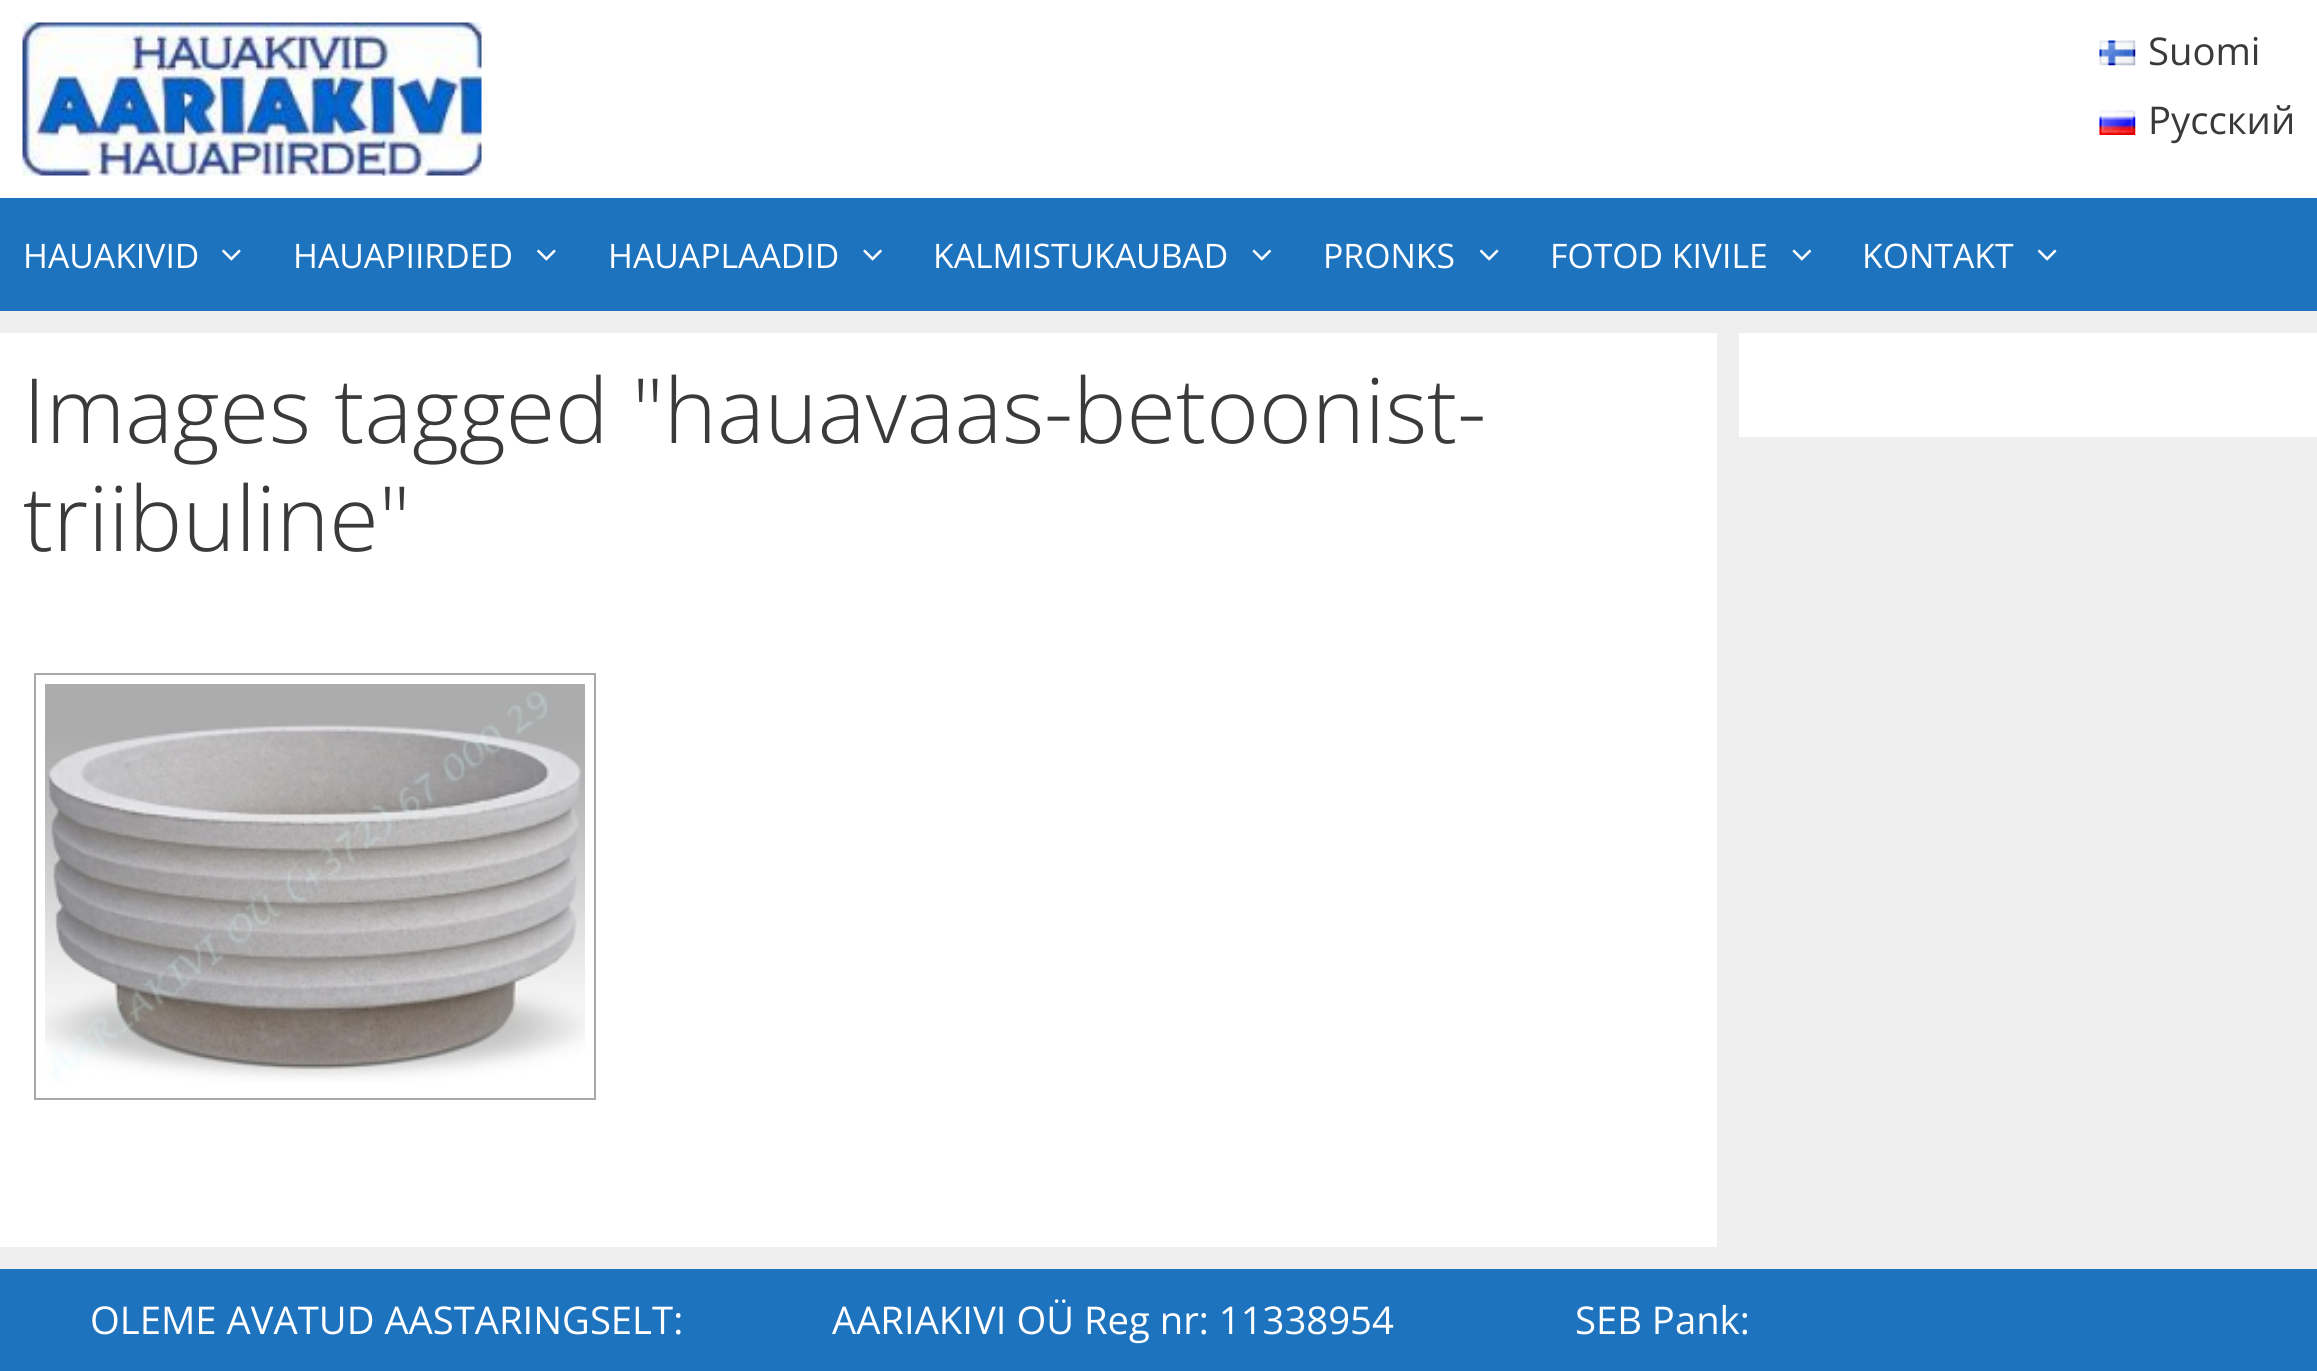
#include <cairo.h>
#include <math.h>
#include <stddef.h>

typedef struct { const char *family; double size; int italic, bold; unsigned color; } style_t;
static cairo_t *ctx;

static void ink(unsigned color) {
    cairo_set_source_rgb(ctx, (color >> 16) / 255.0, (color >> 8 & 255) / 255.0, (color & 255) / 255.0);
}

static void write(double x, double y, const char *s, const style_t *st) {
    cairo_select_font_face(ctx, st->family, st->italic ? CAIRO_FONT_SLANT_ITALIC : CAIRO_FONT_SLANT_NORMAL,
        st->bold ? CAIRO_FONT_WEIGHT_BOLD : CAIRO_FONT_WEIGHT_NORMAL);
    cairo_set_font_size(ctx, st->size);
    ink(st->color);
    cairo_move_to(ctx, x, y);
    cairo_show_text(ctx, s);
}

static void block(double x, double y, double w, double h, unsigned color) {
    ink(color);
    cairo_rectangle(ctx, x, y, w, h);
    cairo_fill(ctx);
}

static void paste(const char *path, double x, double y, double w, double h) {
    cairo_surface_t *image = cairo_image_surface_create_from_png(path);
    cairo_save(ctx);
    cairo_set_source_surface(ctx, image, x, y);
    cairo_rectangle(ctx, x, y, w, h);
    cairo_fill(ctx);
    cairo_restore(ctx);
    cairo_surface_destroy(image);
}

static const style_t s1 = {"Open Sans", 38.25, 0, 0, 0x3a3a3a};
static const style_t s2 = {"Open Sans", 33.75, 0, 0, 0xffffff};
static const style_t s3 = {"Open Sans Light", 90, 0, 0, 0x3a3a3a};
static const style_t s4 = {"Open Sans", 38.25, 0, 0, 0xffffff};

int main(void) {
    cairo_surface_t *surface = cairo_image_surface_create(CAIRO_FORMAT_RGB24, 2317, 1371);
    ctx = cairo_create(surface);
    cairo_font_options_t *options = cairo_font_options_create();
    cairo_font_options_set_hint_metrics(options, CAIRO_HINT_METRICS_OFF);
    cairo_font_options_set_hint_style(options, CAIRO_HINT_STYLE_NONE);
    cairo_set_font_options(ctx, options);
    cairo_set_miter_limit(ctx, 4);
    ink(0xefefef);
    cairo_paint(ctx);
    block(0, 0, 2317, 198, 0xffffff);
    paste("pic1.png", 22, 22, 460, 154);
    paste("pic2.png", 2099, 40, 37, 26);
    write(2148, 65, "Suomi", &s1);
    paste("pic3.png", 2099, 110, 37, 25);
    write(2148, 134, "Русский", &s1);
    block(0, 198, 2317, 113, 0x1e73be);
    write(23, 268, "HAUAKIVID", &s2);
    paste("pic4.png", 222, 249, 19, 12);
    write(293, 268, "HAUAPIIRDED", &s2);
    paste("pic4.png", 537, 249, 19, 12);
    write(608, 268, "HAUAPLAADID", &s2);
    paste("pic5.png", 863, 249, 19, 12);
    write(933, 268, "KALMISTUKAUBAD", &s2);
    paste("pic6.png", 1252, 249, 20, 12);
    write(1323, 268, "PRONKS", &s2);
    paste("pic7.png", 1479, 249, 20, 12);
    write(1550, 268, "FOTOD KIVILE", &s2);
    paste("pic6.png", 1792, 249, 20, 12);
    write(1862, 268, "KONTAKT", &s2);
    paste("pic7.png", 2037, 249, 20, 12);
    block(0, 333, 1717, 914, 0xffffff);
    write(23, 443, "Images tagged \"hauavaas-betoonist-", &s3);
    write(23, 551, "triibuline\"", &s3);
    cairo_rectangle(ctx, 35, 674, 560, 425);
    ink(0xa9a9a9);
    cairo_stroke(ctx);
    paste("pic8.png", 45, 684, 540, 398);
    block(1739, 333, 578, 104, 0xffffff);
    block(0, 1269, 2317, 102, 0x1e73be);
    write(90, 1334, "OLEME AVATUD AASTARINGSELT:", &s4);
    write(832, 1334, "AARIAKIVI OÜ Reg nr: 11338954", &s4);
    write(1575, 1334, "SEB Pank:", &s4);
    cairo_surface_write_to_png(surface, "screenshot.png");
    cairo_font_options_destroy(options);
    cairo_destroy(ctx);
    cairo_surface_destroy(surface);
    return 0;
}
